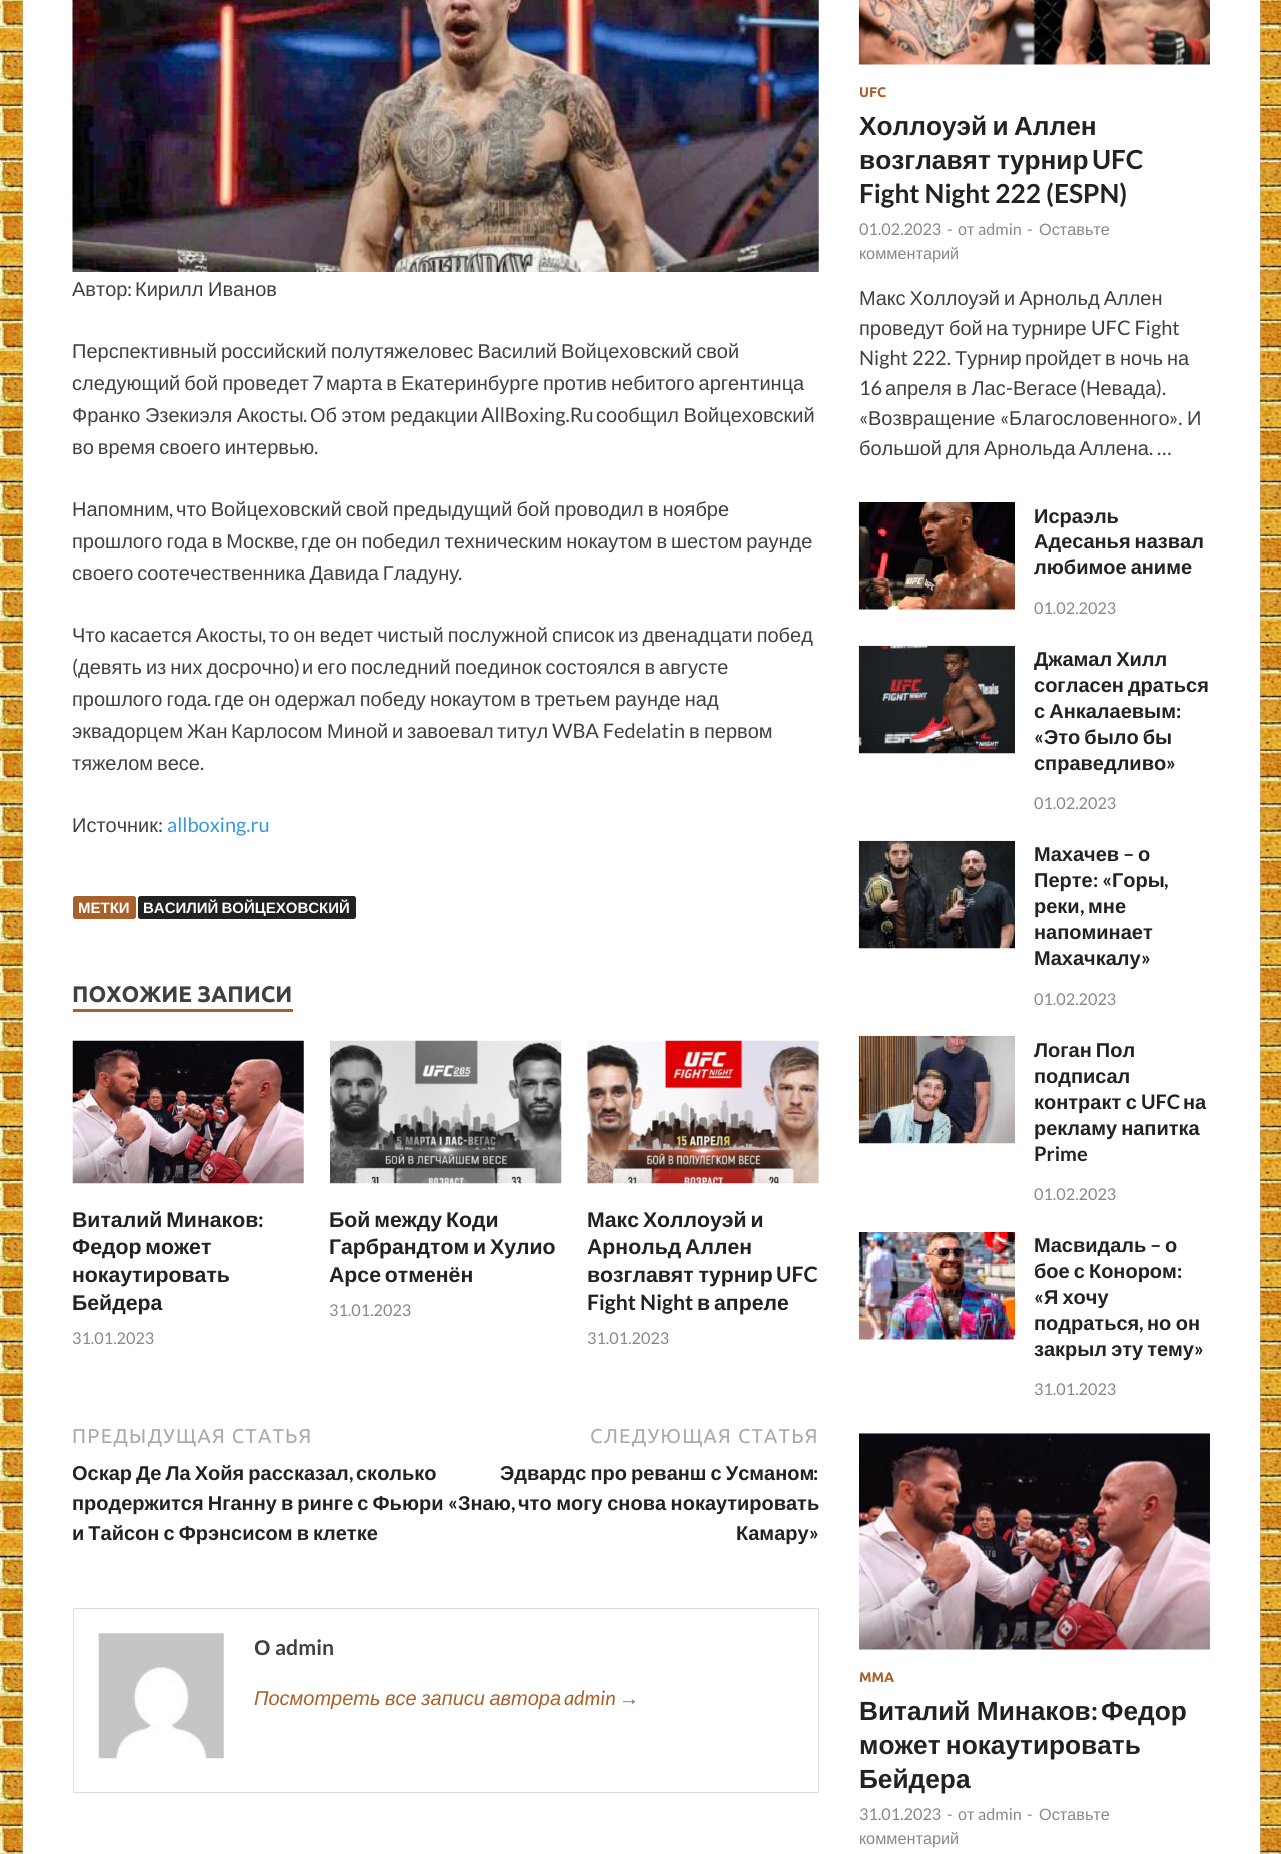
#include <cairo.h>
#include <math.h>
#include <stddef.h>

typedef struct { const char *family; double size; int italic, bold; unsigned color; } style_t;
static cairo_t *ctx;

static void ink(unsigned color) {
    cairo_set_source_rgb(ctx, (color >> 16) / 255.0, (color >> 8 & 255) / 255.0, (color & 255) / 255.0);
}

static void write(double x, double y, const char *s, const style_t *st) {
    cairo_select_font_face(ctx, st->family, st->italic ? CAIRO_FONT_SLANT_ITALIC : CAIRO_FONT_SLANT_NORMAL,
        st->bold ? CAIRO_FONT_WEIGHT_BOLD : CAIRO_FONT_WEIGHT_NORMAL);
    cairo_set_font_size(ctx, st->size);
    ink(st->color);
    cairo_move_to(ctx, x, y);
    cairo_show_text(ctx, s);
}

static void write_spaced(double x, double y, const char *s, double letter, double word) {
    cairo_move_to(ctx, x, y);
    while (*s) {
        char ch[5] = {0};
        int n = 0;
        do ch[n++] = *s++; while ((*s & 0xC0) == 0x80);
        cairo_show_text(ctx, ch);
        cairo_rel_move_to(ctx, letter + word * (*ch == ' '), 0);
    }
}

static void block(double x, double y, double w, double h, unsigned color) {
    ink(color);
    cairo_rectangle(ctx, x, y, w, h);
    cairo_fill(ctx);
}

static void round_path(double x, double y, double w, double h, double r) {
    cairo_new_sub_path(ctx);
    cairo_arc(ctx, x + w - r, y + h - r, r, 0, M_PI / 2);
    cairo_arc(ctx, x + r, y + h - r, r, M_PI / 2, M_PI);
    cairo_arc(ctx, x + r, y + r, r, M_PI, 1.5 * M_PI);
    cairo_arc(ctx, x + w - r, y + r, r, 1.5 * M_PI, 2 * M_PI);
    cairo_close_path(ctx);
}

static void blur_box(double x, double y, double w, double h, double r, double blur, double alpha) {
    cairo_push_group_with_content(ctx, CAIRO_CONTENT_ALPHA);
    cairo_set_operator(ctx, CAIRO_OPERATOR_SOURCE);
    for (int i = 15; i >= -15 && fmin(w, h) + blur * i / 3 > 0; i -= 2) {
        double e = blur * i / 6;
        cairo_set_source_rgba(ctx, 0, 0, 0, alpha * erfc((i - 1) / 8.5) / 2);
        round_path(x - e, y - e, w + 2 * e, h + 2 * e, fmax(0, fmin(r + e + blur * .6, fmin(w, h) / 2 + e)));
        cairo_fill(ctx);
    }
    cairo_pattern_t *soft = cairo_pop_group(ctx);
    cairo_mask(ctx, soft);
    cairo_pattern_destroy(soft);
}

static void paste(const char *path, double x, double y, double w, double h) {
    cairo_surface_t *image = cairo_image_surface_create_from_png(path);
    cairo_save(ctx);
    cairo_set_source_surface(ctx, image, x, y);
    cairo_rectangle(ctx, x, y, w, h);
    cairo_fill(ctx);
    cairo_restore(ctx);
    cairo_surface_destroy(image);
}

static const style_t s1 = {"Liberation Sans", 20, 0, 0, 0x404040};
static const style_t s2 = {"Lato", 20, 0, 0, 0x404040};
static const style_t s3 = {"Lato", 20, 0, 0, 0x3498db};
static const style_t s4 = {"Liberation Sans", 15, 0, 1, 0xffffff};
static const style_t s5 = {"Ubuntu", 22.5, 0, 1, 0x404040};
static const style_t s6 = {"Lato", 21.25, 0, 1, 0x222222};
static const style_t s7 = {"Liberation Sans", 21.25, 0, 1, 0x222222};
static const style_t s8 = {"Lato", 16.25, 0, 0, 0x888888};
static const style_t s9 = {"Lato", 20, 0, 1, 0x222222};
static const style_t s10 = {"Liberation Sans", 20, 0, 1, 0x222222};
static const style_t s11 = {"Liberation Sans", 21.25, 0, 1, 0x404040};
static const style_t s12 = {"Lato", 21.25, 0, 1, 0x404040};
static const style_t s13 = {"Lato", 20, 1, 0, 0xa8612b};
static const style_t s14 = {"Liberation Sans", 20, 1, 0, 0xa8612b};
static const style_t s15 = {"Ubuntu", 14, 0, 1, 0xa8612b};
static const style_t s16 = {"Lato", 26.25, 0, 1, 0x222222};
static const style_t s17 = {"Liberation Sans", 16.25, 0, 0, 0x888888};
static const style_t s18 = {"Liberation Sans", 26.25, 0, 1, 0x222222};

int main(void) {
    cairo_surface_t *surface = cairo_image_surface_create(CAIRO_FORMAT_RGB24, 1281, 1854);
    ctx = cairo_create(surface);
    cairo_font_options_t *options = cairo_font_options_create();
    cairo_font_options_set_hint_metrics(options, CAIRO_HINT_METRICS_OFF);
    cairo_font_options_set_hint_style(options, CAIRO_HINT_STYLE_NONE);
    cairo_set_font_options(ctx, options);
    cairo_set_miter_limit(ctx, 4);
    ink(0xffffff);
    cairo_paint(ctx);
    paste("pic1.png", 0, 0, 1281, 1854);
    ink(0xbbbbbb);
    blur_box(23, -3, 1237, 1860, 0, 1, 1);
    block(23, 0, 1237, 1854, 0xffffff);
    paste("pic2.png", 72, 0, 747, 272);
    write(72, 296, "Автор", &s1);
    write(127, 296, ":", &s2);
    cairo_select_font_face(ctx, "Liberation Sans", CAIRO_FONT_SLANT_NORMAL, CAIRO_FONT_WEIGHT_NORMAL);
    write_spaced(135, 296, "Кирилл Иванов", 0, -1);
    write_spaced(72, 358, "Перспективный российский полутяжеловес Василий Войцеховский свой", 0, -1.5);
    write_spaced(72, 390, "следующий бой проведет", 0, -1.5);
    write(312, 390, "7", &s2);
    cairo_select_font_face(ctx, "Liberation Sans", CAIRO_FONT_SLANT_NORMAL, CAIRO_FONT_WEIGHT_NORMAL);
    write_spaced(326, 390, "марта в Екатеринбурге против небитого аргентинца", 0, -1.5);
    write_spaced(72, 422, "Франко Эзекиэля Акосты", 0, -1);
    write(303, 422, ".", &s2);
    cairo_select_font_face(ctx, "Liberation Sans", CAIRO_FONT_SLANT_NORMAL, CAIRO_FONT_WEIGHT_NORMAL);
    write_spaced(310, 422, "Об этом редакции", 0, -1);
    write(481, 422, "AllBoxing.Ru", &s2);
    cairo_select_font_face(ctx, "Liberation Sans", CAIRO_FONT_SLANT_NORMAL, CAIRO_FONT_WEIGHT_NORMAL);
    write_spaced(596, 422, "сообщил Войцеховский", 0, -1);
    write_spaced(72, 454, "во время своего интервью", 0, -1.5);
    write(314, 454, ".", &s2);
    write(72, 516, "Напомним", &s1);
    write(169, 516, ",", &s2);
    cairo_select_font_face(ctx, "Liberation Sans", CAIRO_FONT_SLANT_NORMAL, CAIRO_FONT_WEIGHT_NORMAL);
    write_spaced(176, 516, "что Войцеховский свой предыдущий бой проводил в ноябре", 0, -1.5);
    write_spaced(72, 548, "прошлого года в Москве", 0, -1.5);
    write(294, 548, ",", &s2);
    cairo_select_font_face(ctx, "Liberation Sans", CAIRO_FONT_SLANT_NORMAL, CAIRO_FONT_WEIGHT_NORMAL);
    write_spaced(301, 548, "где он победил техническим нокаутом в шестом раунде", 0, -1.5);
    write_spaced(72, 580, "своего соотечественника Давида Гладуну", 0, -1.5);
    write(458, 580, ".", &s2);
    cairo_select_font_face(ctx, "Liberation Sans", CAIRO_FONT_SLANT_NORMAL, CAIRO_FONT_WEIGHT_NORMAL);
    write_spaced(72, 642, "Что касается Акосты", 0, -1.5);
    write(262, 642, ",", &s2);
    cairo_select_font_face(ctx, "Liberation Sans", CAIRO_FONT_SLANT_NORMAL, CAIRO_FONT_WEIGHT_NORMAL);
    write_spaced(269, 642, "то он ведет чистый послужной список из двенадцати побед", 0, -1.5);
    write(72, 674, "(", &s2);
    cairo_select_font_face(ctx, "Liberation Sans", CAIRO_FONT_SLANT_NORMAL, CAIRO_FONT_WEIGHT_NORMAL);
    write_spaced(78, 674, "девять из них досрочно", 0, -1.5);
    write(294, 674, ")", &s2);
    cairo_select_font_face(ctx, "Liberation Sans", CAIRO_FONT_SLANT_NORMAL, CAIRO_FONT_WEIGHT_NORMAL);
    write_spaced(302, 674, "и его последний поединок состоялся в августе", 0, -1.5);
    write_spaced(72, 706, "прошлого года", 0, -1.5);
    write(207, 706, ".", &s2);
    cairo_select_font_face(ctx, "Liberation Sans", CAIRO_FONT_SLANT_NORMAL, CAIRO_FONT_WEIGHT_NORMAL);
    write_spaced(214, 706, "где он одержал победу нокаутом в третьем раунде над", 0, -1.5);
    write(72, 738, "эквадорцем", &s1);
    write(187, 738, "Жан", &s1);
    write(231, 738, "Карлосом", &s1);
    write(327, 738, "Миной", &s1);
    write(392, 738, "и", &s1);
    write(407, 738, "завоевал", &s1);
    write(497, 738, "титул", &s1);
    write(552, 738, "WBA Fedelatin", &s2);
    write(689, 738, "в", &s1);
    write(704, 738, "первом", &s1);
    write_spaced(72, 770, "тяжелом весе", 0, -1.5);
    write(200, 770, ".", &s2);
    write(72, 832, "Источник", &s1);
    write(158, 832, ":", &s2);
    write(167, 832, "allboxing.ru", &s3);
    ink(0xa8612b);
    round_path(73, 896, 63, 23, 2.5);
    cairo_fill(ctx);
    write(78, 913, "МЕТКИ", &s4);
    ink(0x222222);
    round_path(138, 896, 218, 23, 2.5);
    cairo_fill(ctx);
    ink(0xffffff);
    write_spaced(143, 913, "ВАСИЛИЙ ВОЙЦЕХОВСКИЙ", 0, -1);
    block(73, 1009, 220, 3, 0xa8612b);
    write(72, 1002, "ПОХОЖИЕ ЗАПИСИ", &s5);
    paste("pic3.png", 72, 1040, 232, 144);
    cairo_select_font_face(ctx, "Liberation Sans", CAIRO_FONT_SLANT_NORMAL, CAIRO_FONT_WEIGHT_BOLD);
    cairo_set_font_size(ctx, 21.25);
    ink(0x222222);
    write_spaced(72, 1227, "Виталий Минаков", 0, -2);
    write(258, 1227, ":", &s6);
    cairo_save(ctx);
    cairo_rectangle(ctx, 73, 979, 746, 412);
    cairo_clip(ctx);
    cairo_select_font_face(ctx, "Liberation Sans", CAIRO_FONT_SLANT_NORMAL, CAIRO_FONT_WEIGHT_BOLD);
    write_spaced(72, 1254, "Федор может", 0, -2);
    cairo_restore(ctx);
    write(72, 1282, "нокаутировать", &s7);
    write(72, 1310, "Бейдера", &s7);
    write(72, 1344, "31.01.2023", &s8);
    paste("pic4.png", 330, 1040, 232, 144);
    cairo_select_font_face(ctx, "Liberation Sans", CAIRO_FONT_SLANT_NORMAL, CAIRO_FONT_WEIGHT_BOLD);
    cairo_set_font_size(ctx, 21.25);
    ink(0x222222);
    write_spaced(329, 1227, "Бой между Коди", 0, -2);
    write_spaced(329, 1254, "Гарбрандтом и Хулио", 0, -2);
    write_spaced(329, 1282, "Арсе отменён", 0, -2);
    write(329, 1316, "31.01.2023", &s8);
    paste("pic5.png", 587, 1040, 232, 144);
    cairo_select_font_face(ctx, "Liberation Sans", CAIRO_FONT_SLANT_NORMAL, CAIRO_FONT_WEIGHT_BOLD);
    cairo_set_font_size(ctx, 21.25);
    ink(0x222222);
    write_spaced(587, 1227, "Макс Холлоуэй и", 0, -2);
    write_spaced(587, 1254, "Арнольд Аллен", 0, -2);
    write_spaced(587, 1282, "возглавят турнир", 0, -1);
    write(776, 1282, "UFC", &s6);
    write(587, 1310, "Fight Night", &s6);
    write(697, 1310, "в", &s7);
    write(714, 1310, "апреле", &s7);
    write(587, 1344, "31.01.2023", &s8);
    cairo_select_font_face(ctx, "Ubuntu", CAIRO_FONT_SLANT_NORMAL, CAIRO_FONT_WEIGHT_NORMAL);
    cairo_set_font_size(ctx, 20);
    ink(0xaaaaaa);
    write_spaced(72, 1443, "ПРЕДЫДУЩАЯ СТАТЬЯ", 1.25, 0);
    cairo_save(ctx);
    cairo_rectangle(ctx, 73, 1421, 746, 127);
    cairo_clip(ctx);
    cairo_select_font_face(ctx, "Liberation Sans", CAIRO_FONT_SLANT_NORMAL, CAIRO_FONT_WEIGHT_BOLD);
    ink(0x222222);
    write_spaced(72, 1480, "Оскар Де Ла Хойя рассказал", 0, -1.5);
    cairo_restore(ctx);
    write(349, 1480, ",", &s9);
    write(356, 1480, "сколько", &s10);
    write_spaced(72, 1510, "продержится Нганну в ринге с Фьюри", 0, -1.5);
    write_spaced(72, 1540, "и Тайсон с Фрэнсисом в клетке", 0, -1.5);
    cairo_select_font_face(ctx, "Ubuntu", CAIRO_FONT_SLANT_NORMAL, CAIRO_FONT_WEIGHT_NORMAL);
    ink(0xaaaaaa);
    write_spaced(590, 1443, "СЛЕДУЮЩАЯ СТАТЬЯ", 1.25, 0);
    cairo_select_font_face(ctx, "Liberation Sans", CAIRO_FONT_SLANT_NORMAL, CAIRO_FONT_WEIGHT_BOLD);
    ink(0x222222);
    write_spaced(500, 1480, "Эдвардс про реванш с Усманом", 0, -1.5);
    write(813, 1480, ":", &s9);
    write(448, 1510, "«", &s9);
    write(458, 1510, "Знаю", &s10);
    write_spaced(518, 1510, "что могу снова нокаутировать", 0, -1);
    write(511, 1510, ",", &s9);
    write(736, 1540, "Камару", &s10);
    write(809, 1540, "»", &s9);
    cairo_rectangle(ctx, 73.5, 1608.5, 745, 184);
    ink(0xdddddd);
    cairo_set_line_width(ctx, 1);
    cairo_stroke(ctx);
    paste("pic6.png", 98, 1633, 126, 126);
    write(254, 1655, "О", &s11);
    write(275, 1655, "admin", &s12);
    cairo_select_font_face(ctx, "Liberation Sans", CAIRO_FONT_SLANT_ITALIC, CAIRO_FONT_WEIGHT_NORMAL);
    cairo_set_font_size(ctx, 20);
    ink(0xa8612b);
    write_spaced(254, 1705, "Посмотреть все записи автора", 0, -1);
    write(564, 1705, "admin", &s13);
    write(619, 1705, "→", &s14);
    paste("pic7.png", 858, 0, 352, 65);
    write(859, 97, "UFC", &s15);
    cairo_select_font_face(ctx, "Liberation Sans", CAIRO_FONT_SLANT_NORMAL, CAIRO_FONT_WEIGHT_BOLD);
    cairo_set_font_size(ctx, 26.25);
    ink(0x222222);
    write_spaced(859, 135, "Холлоуэй и Аллен", 0, -2);
    write_spaced(859, 169, "возглавят турнир", 0, -1);
    write(1092, 169, "UFC", &s16);
    write(859, 203, "Fight Night 222 (ESPN)", &s16);
    write(859, 235, "01.02.2023", &s8);
    write(947, 235, "-", &s8);
    write(958, 235, "от", &s17);
    write(978, 235, "admin", &s8);
    write(1027, 235, "-", &s8);
    write(1039, 235, "Оставьте", &s17);
    write(859, 259, "комментарий", &s17);
    cairo_set_font_size(ctx, 20);
    ink(0x404040);
    write_spaced(859, 305, "Макс Холлоуэй и Арнольд Аллен", 0, -1.5);
    write(859, 335, "проведут", &s1);
    write(949, 335, "бой", &s1);
    write(986, 335, "на", &s1);
    write(1012, 335, "турнире", &s1);
    write(1091, 335, "UFC Fight", &s2);
    write(859, 365, "Night 222.", &s2);
    write(955, 365, "Турнир", &s1);
    write(1025, 365, "пройдет", &s1);
    write(1105, 365, "в", &s1);
    write(1120, 365, "ночь", &s1);
    write(1167, 365, "на", &s1);
    write(859, 395, "16", &s2);
    cairo_select_font_face(ctx, "Liberation Sans", CAIRO_FONT_SLANT_NORMAL, CAIRO_FONT_WEIGHT_NORMAL);
    write_spaced(885, 395, "апреля в Лас", 0, -1);
    write(1006, 395, "-", &s2);
    write(1013, 395, "Вегасе", &s1);
    write(1080, 395, "(", &s2);
    write(1086, 395, "Невада", &s1);
    write(1156, 395, ").", &s2);
    write(859, 425, "«", &s2);
    write(868, 425, "Возвращение", &s1);
    write(1000, 425, "«", &s2);
    write(1009, 425, "Благословенного", &s1);
    write(1169, 425, "».", &s2);
    write(1187, 425, "И", &s1);
    write(859, 455, "большой", &s1);
    write(946, 455, "для", &s1);
    write(984, 455, "Арнольда", &s1);
    write(1079, 455, "Аллена", &s1);
    write(1149, 455, ". …", &s2);
    paste("pic8.png", 858, 502, 157, 108);
    write(1034, 523, "Исраэль", &s10);
    write_spaced(1034, 548, "Адесанья назвал", 0, -1.5);
    write_spaced(1034, 574, "любимое аниме", 0, -1.5);
    write(1034, 614, "01.02.2023", &s8);
    paste("pic9.png", 858, 645, 157, 109);
    cairo_select_font_face(ctx, "Liberation Sans", CAIRO_FONT_SLANT_NORMAL, CAIRO_FONT_WEIGHT_BOLD);
    cairo_set_font_size(ctx, 20);
    ink(0x222222);
    write_spaced(1034, 666, "Джамал Хилл", 0, -1.5);
    write_spaced(1034, 692, "согласен драться", 0, -1.5);
    write_spaced(1034, 718, "с Анкалаевым", 0, -1.5);
    write(1176, 718, ":", &s9);
    write(1034, 744, "«", &s9);
    cairo_select_font_face(ctx, "Liberation Sans", CAIRO_FONT_SLANT_NORMAL, CAIRO_FONT_WEIGHT_BOLD);
    write_spaced(1044, 744, "Это было бы", 0, -1.5);
    write(1034, 770, "справедливо", &s10);
    write(1166, 770, "»", &s9);
    write(1034, 809, "01.02.2023", &s8);
    paste("pic10.png", 858, 840, 157, 109);
    write(1034, 861, "Махачев", &s10);
    write(1123, 861, "–", &s9);
    write(1138, 861, "о", &s10);
    write(1034, 887, "Перте", &s10);
    write(1093, 887, ": «", &s9);
    write(1112, 887, "Горы", &s10);
    write(1164, 887, ",", &s9);
    write(1034, 913, "реки", &s10);
    write(1080, 913, ",", &s9);
    write(1088, 913, "мне", &s10);
    write(1034, 939, "напоминает", &s10);
    write(1034, 965, "Махачкалу", &s10);
    write(1141, 965, "»", &s9);
    write(1034, 1005, "01.02.2023", &s8);
    paste("pic11.png", 858, 1035, 157, 109);
    cairo_select_font_face(ctx, "Liberation Sans", CAIRO_FONT_SLANT_NORMAL, CAIRO_FONT_WEIGHT_BOLD);
    cairo_set_font_size(ctx, 20);
    ink(0x222222);
    write_spaced(1034, 1057, "Логан Пол", 0, -1.5);
    write(1034, 1083, "подписал", &s10);
    write_spaced(1034, 1109, "контракт с", 0, -1);
    write(1141, 1109, "UFC", &s9);
    write(1183, 1109, "на", &s10);
    write_spaced(1034, 1135, "рекламу напитка", 0, -1.5);
    write(1034, 1161, "Prime", &s9);
    write(1034, 1200, "01.02.2023", &s8);
    paste("pic12.png", 858, 1232, 157, 108);
    write(1034, 1252, "Масвидаль", &s10);
    write(1150, 1252, "–", &s9);
    write(1165, 1252, "о", &s10);
    write_spaced(1034, 1278, "бое с Конором", 0, -1.5);
    write(1177, 1278, ":", &s9);
    write(1034, 1304, "«", &s9);
    cairo_select_font_face(ctx, "Liberation Sans", CAIRO_FONT_SLANT_NORMAL, CAIRO_FONT_WEIGHT_BOLD);
    write_spaced(1044, 1304, "Я хочу", 0, -1.5);
    write(1034, 1330, "подраться", &s10);
    write(1139, 1330, ",", &s9);
    cairo_select_font_face(ctx, "Liberation Sans", CAIRO_FONT_SLANT_NORMAL, CAIRO_FONT_WEIGHT_BOLD);
    write_spaced(1147, 1330, "но он", 0, -1);
    write_spaced(1034, 1356, "закрыл эту тему", 0, -1.5);
    write(1194, 1356, "»", &s9);
    write(1034, 1395, "31.01.2023", &s8);
    paste("pic13.png", 859, 1433, 351, 217);
    write(859, 1682, "ММА", &s15);
    cairo_select_font_face(ctx, "Liberation Sans", CAIRO_FONT_SLANT_NORMAL, CAIRO_FONT_WEIGHT_BOLD);
    cairo_set_font_size(ctx, 26.25);
    ink(0x222222);
    write_spaced(859, 1720, "Виталий Минаков", 0, -1);
    write(1091, 1720, ":", &s16);
    write(1101, 1720, "Федор", &s18);
    write_spaced(859, 1754, "может нокаутировать", 0, -2);
    write(859, 1788, "Бейдера", &s18);
    write(859, 1820, "31.01.2023", &s8);
    write(947, 1820, "-", &s8);
    write(958, 1820, "от", &s17);
    write(978, 1820, "admin", &s8);
    write(1027, 1820, "-", &s8);
    write(1039, 1820, "Оставьте", &s17);
    write(859, 1844, "комментарий", &s17);
    cairo_surface_write_to_png(surface, "screenshot.png");
    cairo_font_options_destroy(options);
    cairo_destroy(ctx);
    cairo_surface_destroy(surface);
    return 0;
}
